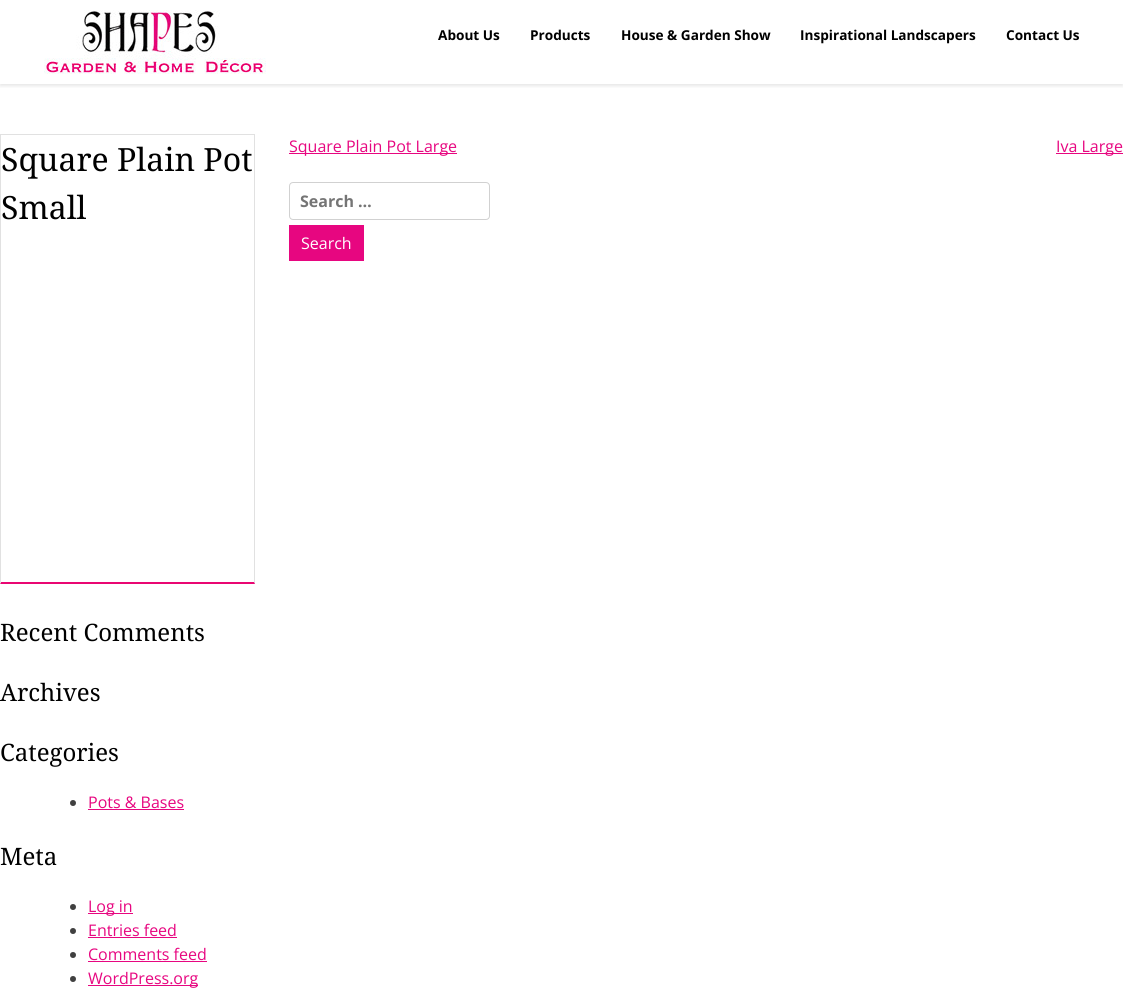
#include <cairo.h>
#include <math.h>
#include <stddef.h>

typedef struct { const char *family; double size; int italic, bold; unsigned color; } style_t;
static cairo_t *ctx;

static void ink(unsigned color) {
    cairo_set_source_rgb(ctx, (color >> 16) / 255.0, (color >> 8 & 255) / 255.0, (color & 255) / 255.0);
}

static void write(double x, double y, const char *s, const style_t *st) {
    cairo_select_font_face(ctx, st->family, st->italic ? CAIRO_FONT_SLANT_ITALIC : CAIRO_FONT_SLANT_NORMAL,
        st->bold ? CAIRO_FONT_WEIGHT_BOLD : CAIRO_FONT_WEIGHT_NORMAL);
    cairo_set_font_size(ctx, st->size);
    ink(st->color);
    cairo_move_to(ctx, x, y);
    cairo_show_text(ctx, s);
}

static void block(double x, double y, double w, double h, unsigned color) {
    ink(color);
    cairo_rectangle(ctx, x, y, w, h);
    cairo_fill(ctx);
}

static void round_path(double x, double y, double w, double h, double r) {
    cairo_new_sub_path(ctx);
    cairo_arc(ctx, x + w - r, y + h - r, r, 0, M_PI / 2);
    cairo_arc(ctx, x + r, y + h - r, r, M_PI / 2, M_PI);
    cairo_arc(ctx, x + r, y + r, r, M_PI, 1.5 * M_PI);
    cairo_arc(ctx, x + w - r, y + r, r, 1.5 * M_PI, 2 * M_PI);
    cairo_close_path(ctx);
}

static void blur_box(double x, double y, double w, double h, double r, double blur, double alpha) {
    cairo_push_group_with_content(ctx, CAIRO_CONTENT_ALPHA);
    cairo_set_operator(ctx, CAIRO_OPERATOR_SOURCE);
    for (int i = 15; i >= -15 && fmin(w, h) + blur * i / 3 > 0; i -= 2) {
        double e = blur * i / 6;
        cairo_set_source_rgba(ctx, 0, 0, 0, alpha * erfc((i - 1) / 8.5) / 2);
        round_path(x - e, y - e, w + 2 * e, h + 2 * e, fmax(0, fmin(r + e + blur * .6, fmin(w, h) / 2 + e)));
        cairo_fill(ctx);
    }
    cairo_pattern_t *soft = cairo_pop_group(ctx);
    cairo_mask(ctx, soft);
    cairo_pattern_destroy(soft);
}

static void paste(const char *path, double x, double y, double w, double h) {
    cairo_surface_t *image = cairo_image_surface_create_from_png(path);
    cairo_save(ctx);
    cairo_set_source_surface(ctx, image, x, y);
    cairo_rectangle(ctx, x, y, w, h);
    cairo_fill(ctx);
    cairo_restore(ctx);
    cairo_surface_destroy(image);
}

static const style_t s1 = {"Open Sans", 13.6, 0, 1, 0x000000};
static const style_t s2 = {"Noto Serif", 32, 0, 0, 0x000000};
static const style_t s3 = {"Open Sans", 16, 0, 0, 0xe70680};
static const style_t s4 = {"Open Sans", 16, 0, 1, 0x757575};
static const style_t s5 = {"Open Sans", 16, 0, 0, 0xffffff};
static const style_t s6 = {"Noto Serif", 24, 0, 0, 0x000000};

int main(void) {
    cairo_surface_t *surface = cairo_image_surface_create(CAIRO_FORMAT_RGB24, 1123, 1002);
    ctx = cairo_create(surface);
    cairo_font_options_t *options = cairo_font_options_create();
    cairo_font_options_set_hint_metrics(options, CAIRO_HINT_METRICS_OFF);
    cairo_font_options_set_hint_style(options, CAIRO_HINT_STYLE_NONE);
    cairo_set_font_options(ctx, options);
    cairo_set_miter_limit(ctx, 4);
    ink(0xffffff);
    cairo_paint(ctx);
    cairo_save(ctx);
    cairo_rectangle(ctx, 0, 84, 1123, 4);
    cairo_clip(ctx);
    ink(0x000000);
    blur_box(0, 2, 1123, 84, 0, 2, 0.1);
    cairo_restore(ctx);
    paste("pic1.png", 44, 10, 222, 64);
    write(438, 40, "About Us", &s1);
    write(530, 40, "Products", &s1);
    write(621, 40, "House & Garden Show", &s1);
    write(800, 40, "Inspirational Landscapers", &s1);
    write(1006, 40, "Contact Us", &s1);
    block(0, 134, 255, 1, 0xe1e1e1);
    cairo_new_path(ctx);
    cairo_move_to(ctx, 255, 134);
    cairo_line_to(ctx, 255, 584);
    cairo_line_to(ctx, 254, 582);
    cairo_line_to(ctx, 254, 135);
    cairo_close_path(ctx);
    cairo_fill(ctx);
    ink(0xe90672);
    cairo_new_path(ctx);
    cairo_move_to(ctx, 255, 584);
    cairo_line_to(ctx, 0, 584);
    cairo_line_to(ctx, 1, 582);
    cairo_line_to(ctx, 254, 582);
    cairo_close_path(ctx);
    cairo_fill(ctx);
    ink(0xe1e1e1);
    cairo_new_path(ctx);
    cairo_move_to(ctx, 0, 584);
    cairo_line_to(ctx, 0, 134);
    cairo_line_to(ctx, 1, 135);
    cairo_line_to(ctx, 1, 582);
    cairo_close_path(ctx);
    cairo_fill(ctx);
    write(1, 171, "Square Plain Pot", &s2);
    write(1, 219, "Small", &s2);
    block(289, 153, 168, 1, 0xe70680);
    write(289, 152, "Square Plain Pot Large", &s3);
    block(1056, 153, 67, 1, 0xe70680);
    write(1056, 152, "Iva Large", &s3);
    round_path(289.5, 182.5, 200, 37, 3.5);
    ink(0xd1d1d1);
    cairo_set_line_width(ctx, 1);
    cairo_stroke(ctx);
    write(300, 207, "Search …", &s4);
    block(289, 225, 75, 36, 0xe70680);
    write(301, 249, "Search", &s5);
    write(0, 641, "Recent Comments", &s6);
    write(0, 701, "Archives", &s6);
    write(0, 761, "Categories", &s6);
    ink(0x404040);
    cairo_new_path(ctx);
    cairo_arc(ctx, 73, 803, 3, 0, 2 * M_PI);
    cairo_fill(ctx);
    write(88, 808, "Pots & Bases", &s3);
    block(88, 809, 96, 1, 0xe70680);
    write(0, 865, "Meta", &s6);
    ink(0x404040);
    cairo_new_path(ctx);
    cairo_arc(ctx, 73, 907, 3, 0, 2 * M_PI);
    cairo_fill(ctx);
    block(88, 913, 45, 1, 0xe70680);
    write(88, 912, "Log in", &s3);
    ink(0x404040);
    cairo_new_path(ctx);
    cairo_arc(ctx, 73, 931, 3, 0, 2 * M_PI);
    cairo_fill(ctx);
    write(88, 936, "Entries feed", &s3);
    block(88, 937, 89, 1, 0xe70680);
    ink(0x404040);
    cairo_new_path(ctx);
    cairo_arc(ctx, 73, 955, 3, 0, 2 * M_PI);
    cairo_fill(ctx);
    write(88, 960, "Comments feed", &s3);
    block(88, 961, 119, 1, 0xe70680);
    ink(0x404040);
    cairo_new_path(ctx);
    cairo_arc(ctx, 73, 979, 3, 0, 2 * M_PI);
    cairo_fill(ctx);
    block(88, 985, 110, 1, 0xe70680);
    write(88, 984, "WordPress.org", &s3);
    cairo_surface_write_to_png(surface, "screenshot.png");
    cairo_font_options_destroy(options);
    cairo_destroy(ctx);
    cairo_surface_destroy(surface);
    return 0;
}
